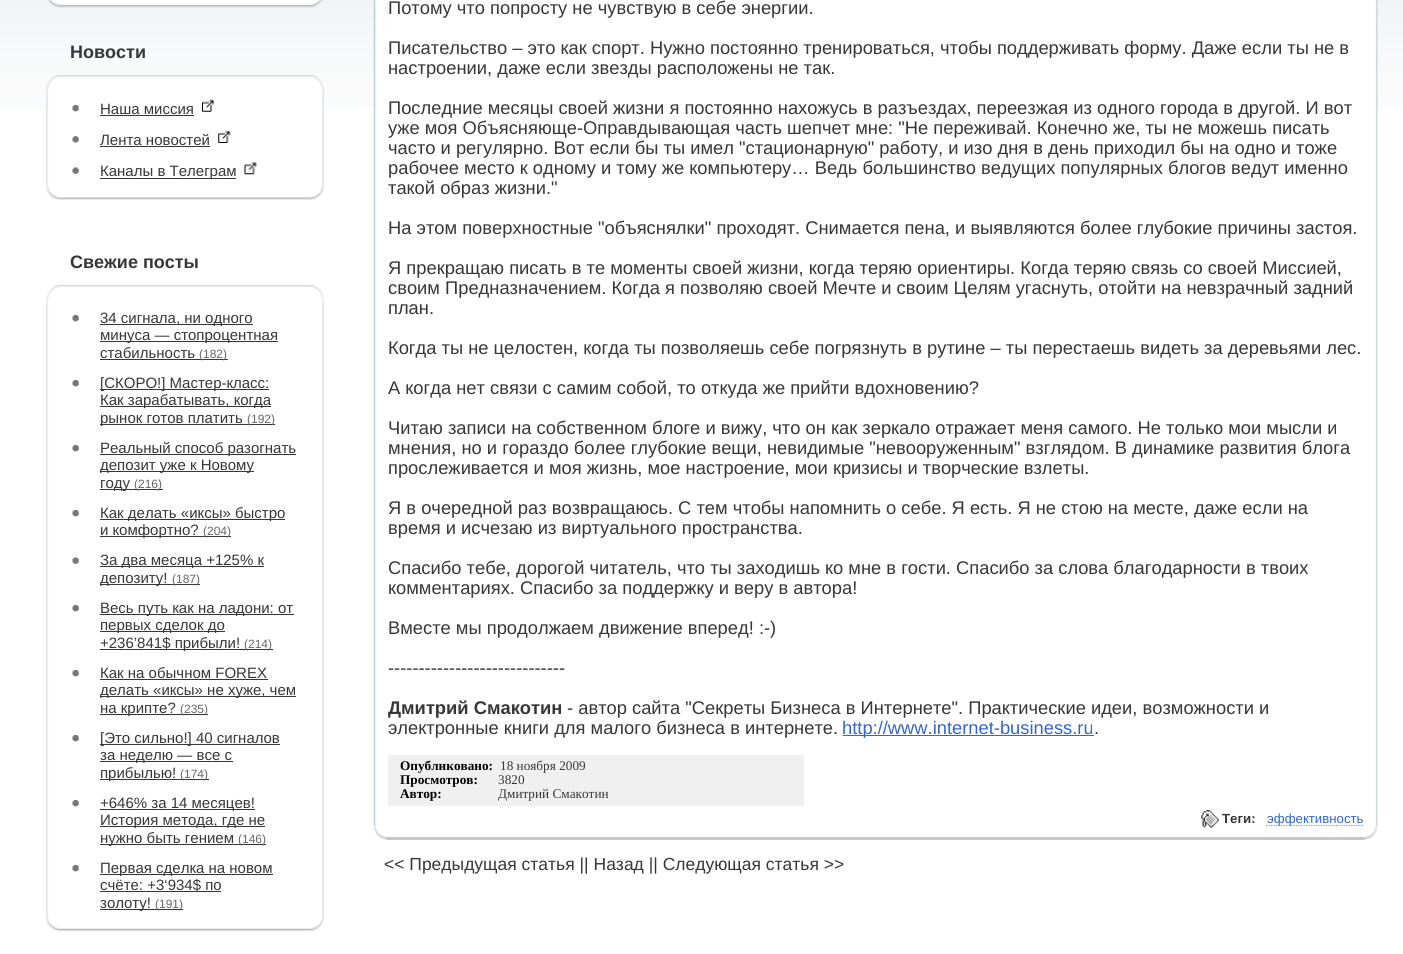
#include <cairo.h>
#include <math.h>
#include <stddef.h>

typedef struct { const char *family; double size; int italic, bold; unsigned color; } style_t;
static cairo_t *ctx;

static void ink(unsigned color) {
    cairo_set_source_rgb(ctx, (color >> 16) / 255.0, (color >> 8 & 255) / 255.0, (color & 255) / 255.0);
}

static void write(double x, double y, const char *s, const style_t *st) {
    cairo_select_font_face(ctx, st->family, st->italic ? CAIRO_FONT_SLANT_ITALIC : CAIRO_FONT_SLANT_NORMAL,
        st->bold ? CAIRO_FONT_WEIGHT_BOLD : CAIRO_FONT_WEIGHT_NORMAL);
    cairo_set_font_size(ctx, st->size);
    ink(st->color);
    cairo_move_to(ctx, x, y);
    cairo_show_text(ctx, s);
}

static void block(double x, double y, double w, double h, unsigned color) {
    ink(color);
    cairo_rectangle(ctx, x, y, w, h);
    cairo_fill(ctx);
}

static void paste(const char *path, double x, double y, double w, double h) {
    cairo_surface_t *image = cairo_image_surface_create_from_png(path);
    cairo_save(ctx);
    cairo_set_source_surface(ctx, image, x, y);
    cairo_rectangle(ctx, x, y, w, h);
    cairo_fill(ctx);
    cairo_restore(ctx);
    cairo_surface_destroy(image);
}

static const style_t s1 = {"Liberation Sans", 18, 0, 1, 0x373737};
static const style_t s2 = {"Liberation Sans", 15, 0, 0, 0x373737};
static const style_t s3 = {"Liberation Sans", 12, 0, 0, 0x666666};
static const style_t s4 = {"Liberation Sans", 18.33, 0, 0, 0x373737};
static const style_t s5 = {"Liberation Sans", 18.33, 0, 1, 0x373737};
static const style_t s6 = {"Liberation Sans", 18.33, 0, 0, 0x3366cc};
static const style_t s7 = {"Liberation Serif", 13.25, 0, 1, 0x000000};
static const style_t s8 = {"Liberation Serif", 13.25, 0, 0, 0x373737};
static const style_t s9 = {"Liberation Sans", 13.25, 0, 1, 0x373737};
static const style_t s10 = {"Liberation Sans", 13.25, 0, 0, 0x3366cc};
static const style_t s11 = {"Liberation Sans", 17.5, 0, 0, 0x373737};

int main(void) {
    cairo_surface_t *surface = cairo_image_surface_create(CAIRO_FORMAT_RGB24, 1403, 954);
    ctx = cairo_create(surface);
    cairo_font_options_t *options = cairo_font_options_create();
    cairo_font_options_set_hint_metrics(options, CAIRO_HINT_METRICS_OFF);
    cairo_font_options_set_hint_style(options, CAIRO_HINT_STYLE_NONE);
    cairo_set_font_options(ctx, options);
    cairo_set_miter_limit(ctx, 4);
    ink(0xffffff);
    cairo_paint(ctx);
    paste("pic1.png", 0, 0, 1403, 107);
    paste("pic2.png", 47, 0, 276, 8);
    write(70, 58, "Новости", &s1);
    paste("pic4.png", 46, 92, 278, 95);
    paste("pic3.png", 46, 75, 278, 18);
    paste("pic5.png", 72, 105, 7, 7);
    write(100, 114, "Наша миссия", &s2);
    block(100, 115, 94, 1, 0x373737);
    paste("pic6.png", 202, 99, 12, 13);
    paste("pic7.png", 72, 136, 7, 7);
    write(100, 145, "Лента новостей", &s2);
    block(100, 146, 110, 1, 0x373737);
    paste("pic8.png", 218, 131, 13, 12);
    paste("pic9.png", 72, 167, 7, 7);
    block(100, 178, 136, 1, 0x373737);
    write(100, 176, "Каналы в Телеграм", &s2);
    paste("pic10.png", 244, 162, 13, 13);
    paste("pic11.png", 46, 186, 278, 14);
    write(70, 268, "Свежие посты", &s1);
    paste("pic13.png", 46, 302, 278, 616);
    paste("pic12.png", 46, 285, 278, 18);
    paste("pic5.png", 72, 315, 7, 7);
    block(100, 324, 153, 1, 0x373737);
    write(100, 323, "34 сигнала, ни одного", &s2);
    block(100, 341, 178, 1, 0x373737);
    write(100, 340, "минуса — стопроцентная", &s2);
    write(100, 358, "стабильность", &s2);
    block(100, 359, 128, 1, 0x373737);
    write(199, 358, "(182)", &s3);
    paste("pic5.png", 72, 380, 7, 7);
    block(100, 389, 169, 1, 0x373737);
    write(100, 388, "[СКОРО!] Мастер-класс:", &s2);
    block(100, 406, 171, 1, 0x373737);
    write(100, 405, "Как зарабатывать, когда", &s2);
    block(100, 424, 175, 1, 0x373737);
    write(100, 423, "рынок готов платить", &s2);
    write(247, 423, "(192)", &s3);
    paste("pic5.png", 72, 445, 7, 7);
    block(100, 454, 196, 1, 0x373737);
    write(100, 453, "Реальный способ разогнать", &s2);
    block(100, 471, 154, 1, 0x373737);
    write(100, 470, "депозит уже к Новому", &s2);
    block(100, 489, 63, 1, 0x373737);
    write(100, 488, "году", &s2);
    write(134, 488, "(216)", &s3);
    paste("pic5.png", 72, 510, 7, 7);
    block(100, 519, 185, 1, 0x373737);
    write(100, 518, "Как делать «иксы» быстро", &s2);
    block(100, 536, 131, 1, 0x373737);
    write(100, 535, "и комфортно?", &s2);
    write(203, 535, "(204)", &s3);
    paste("pic9.png", 72, 557, 7, 7);
    block(100, 566, 164, 1, 0x373737);
    write(100, 565, "За два месяца +125% к", &s2);
    block(100, 584, 100, 1, 0x373737);
    write(100, 583, "депозиту!", &s2);
    write(172, 583, "(187)", &s3);
    paste("pic5.png", 72, 605, 7, 7);
    block(100, 614, 194, 1, 0x373737);
    write(100, 613, "Весь путь как на ладони: от", &s2);
    block(100, 631, 125, 1, 0x373737);
    write(100, 630, "первых сделок до", &s2);
    block(100, 649, 173, 1, 0x373737);
    write(100, 648, "+236’841$ прибыли!", &s2);
    write(244, 648, "(214)", &s3);
    paste("pic5.png", 72, 670, 7, 7);
    write(100, 678, "Как на обычном FOREX", &s2);
    block(100, 679, 168, 1, 0x373737);
    block(100, 696, 196, 1, 0x373737);
    write(100, 695, "делать «иксы» не хуже, чем", &s2);
    block(100, 714, 108, 1, 0x373737);
    write(100, 713, "на крипте?", &s2);
    write(180, 713, "(235)", &s3);
    paste("pic5.png", 72, 735, 7, 7);
    block(100, 744, 180, 1, 0x373737);
    write(100, 743, "[Это сильно!] 40 сигналов", &s2);
    block(100, 761, 133, 1, 0x373737);
    write(100, 760, "за неделю — все с", &s2);
    block(100, 779, 109, 1, 0x373737);
    write(100, 778, "прибылью!", &s2);
    write(180, 778, "(174)", &s3);
    paste("pic5.png", 72, 800, 7, 7);
    block(100, 809, 155, 1, 0x373737);
    write(100, 808, "+646% за 14 месяцев!", &s2);
    block(100, 826, 165, 1, 0x373737);
    write(100, 825, "История метода, где не", &s2);
    block(100, 844, 166, 1, 0x373737);
    write(100, 843, "нужно быть гением", &s2);
    write(238, 843, "(146)", &s3);
    paste("pic5.png", 72, 865, 7, 7);
    block(100, 874, 173, 1, 0x373737);
    write(100, 873, "Первая сделка на новом", &s2);
    block(100, 891, 121, 1, 0x373737);
    write(100, 890, "счёте: +3‘934$ по", &s2);
    block(100, 909, 83, 1, 0x373737);
    write(100, 908, "золоту!", &s2);
    write(155, 908, "(191)", &s3);
    paste("pic14.png", 46, 917, 278, 15);
    paste("pic15.png", 373, 0, 15, 827);
    block(388, 0, 976, 107, 0xffffff);
    write(388, 14, "Потому что попросту не чувствую в себе энергии.", &s4);
    write(388, 54, "Писательство – это как спорт. Нужно постоянно тренироваться, чтобы поддерживать форму. Даже если ты не в", &s4);
    write(388, 74, "настроении, даже если звезды расположены не так.", &s4);
    write(388, 114, "Последние месяцы своей жизни я постоянно нахожусь в разъездах, переезжая из одного города в другой. И вот", &s4);
    write(388, 134, "уже моя Объясняюще-Оправдывающая часть шепчет мне: \"Не переживай. Конечно же, ты не можешь писать", &s4);
    write(388, 154, "часто и регулярно. Вот если бы ты имел \"стационарную\" работу, и изо дня в день приходил бы на одно и тоже", &s4);
    write(388, 174, "рабочее место к одному и тому же компьютеру… Ведь большинство ведущих популярных блогов ведут именно", &s4);
    write(388, 194, "такой образ жизни.\"", &s4);
    write(388, 234, "На этом поверхностные \"объяснялки\" проходят. Снимается пена, и выявляются более глубокие причины застоя.", &s4);
    write(388, 274, "Я прекращаю писать в те моменты своей жизни, когда теряю ориентиры. Когда теряю связь со своей Миссией,", &s4);
    write(388, 294, "своим Предназначением. Когда я позволяю своей Мечте и своим Целям угаснуть, отойти на невзрачный задний", &s4);
    write(388, 314, "план.", &s4);
    write(388, 354, "Когда ты не целостен, когда ты позволяешь себе погрязнуть в рутине – ты перестаешь видеть за деревьями лес.", &s4);
    write(388, 394, "А когда нет связи с самим собой, то откуда же прийти вдохновению?", &s4);
    write(388, 434, "Читаю записи на собственном блоге и вижу, что он как зеркало отражает меня самого. Не только мои мысли и", &s4);
    write(388, 454, "мнения, но и гораздо более глубокие вещи, невидимые \"невооруженным\" взглядом. В динамике развития блога", &s4);
    write(388, 474, "прослеживается и моя жизнь, мое настроение, мои кризисы и творческие взлеты.", &s4);
    write(388, 514, "Я в очередной раз возвращаюсь. С тем чтобы напомнить о себе. Я есть. Я не стою на месте, даже если на", &s4);
    write(388, 534, "время и исчезаю из виртуального пространства.", &s4);
    write(388, 574, "Спасибо тебе, дорогой читатель, что ты заходишь ко мне в гости. Спасибо за слова благодарности в твоих", &s4);
    write(388, 594, "комментариях. Спасибо за поддержку и веру в автора!", &s4);
    write(388, 634, "Вместе мы продолжаем движение вперед! :-)", &s4);
    write(388, 674, "-----------------------------", &s4);
    write(388, 714, "Дмитрий Смакотин", &s5);
    write(567, 714, "- автор сайта \"Секреты Бизнеса в Интернете\". Практические идеи, возможности и", &s4);
    write(388, 734, "электронные книги для малого бизнеса в интернете.", &s4);
    block(843, 735, 251, 1, 0x3366cc);
    write(842, 734, "http://www.internet-business.ru", &s6);
    write(1094, 734, ".", &s4);
    block(388, 755, 416, 51, 0xf0f0f0);
    write(400, 770, "Опубликовано:", &s7);
    write(500, 770, "18 ноября 2009", &s8);
    write(400, 784, "Просмотров:", &s7);
    write(498, 784, "3820", &s8);
    write(400, 798, "Автор:", &s7);
    write(498, 798, "Дмитрий Смакотин", &s8);
    paste("pic16.png", 1201, 810, 18, 18);
    write(1222, 823, "Теги:", &s9);
    cairo_new_path(ctx);
    cairo_move_to(ctx, 1266, 825.5);
    cairo_line_to(ctx, 1364, 825.5);
    ink(0x999999);
    cairo_set_line_width(ctx, 1.2);
    cairo_set_dash(ctx, (double[]){1.25, 1.25}, 2, 0);
    cairo_stroke(ctx);
    write(1267, 823, "эффективность", &s10);
    paste("pic17.png", 1364, 0, 14, 827);
    block(387, 837, 977, 3, 0xc5c6c8);
    paste("pic18.png", 373, 826, 15, 14);
    paste("pic19.png", 1363, 826, 15, 14);
    write(384, 870, "<< Предыдущая статья || Назад || Следующая статья >>", &s11);
    cairo_surface_write_to_png(surface, "screenshot.png");
    cairo_font_options_destroy(options);
    cairo_destroy(ctx);
    cairo_surface_destroy(surface);
    return 0;
}
